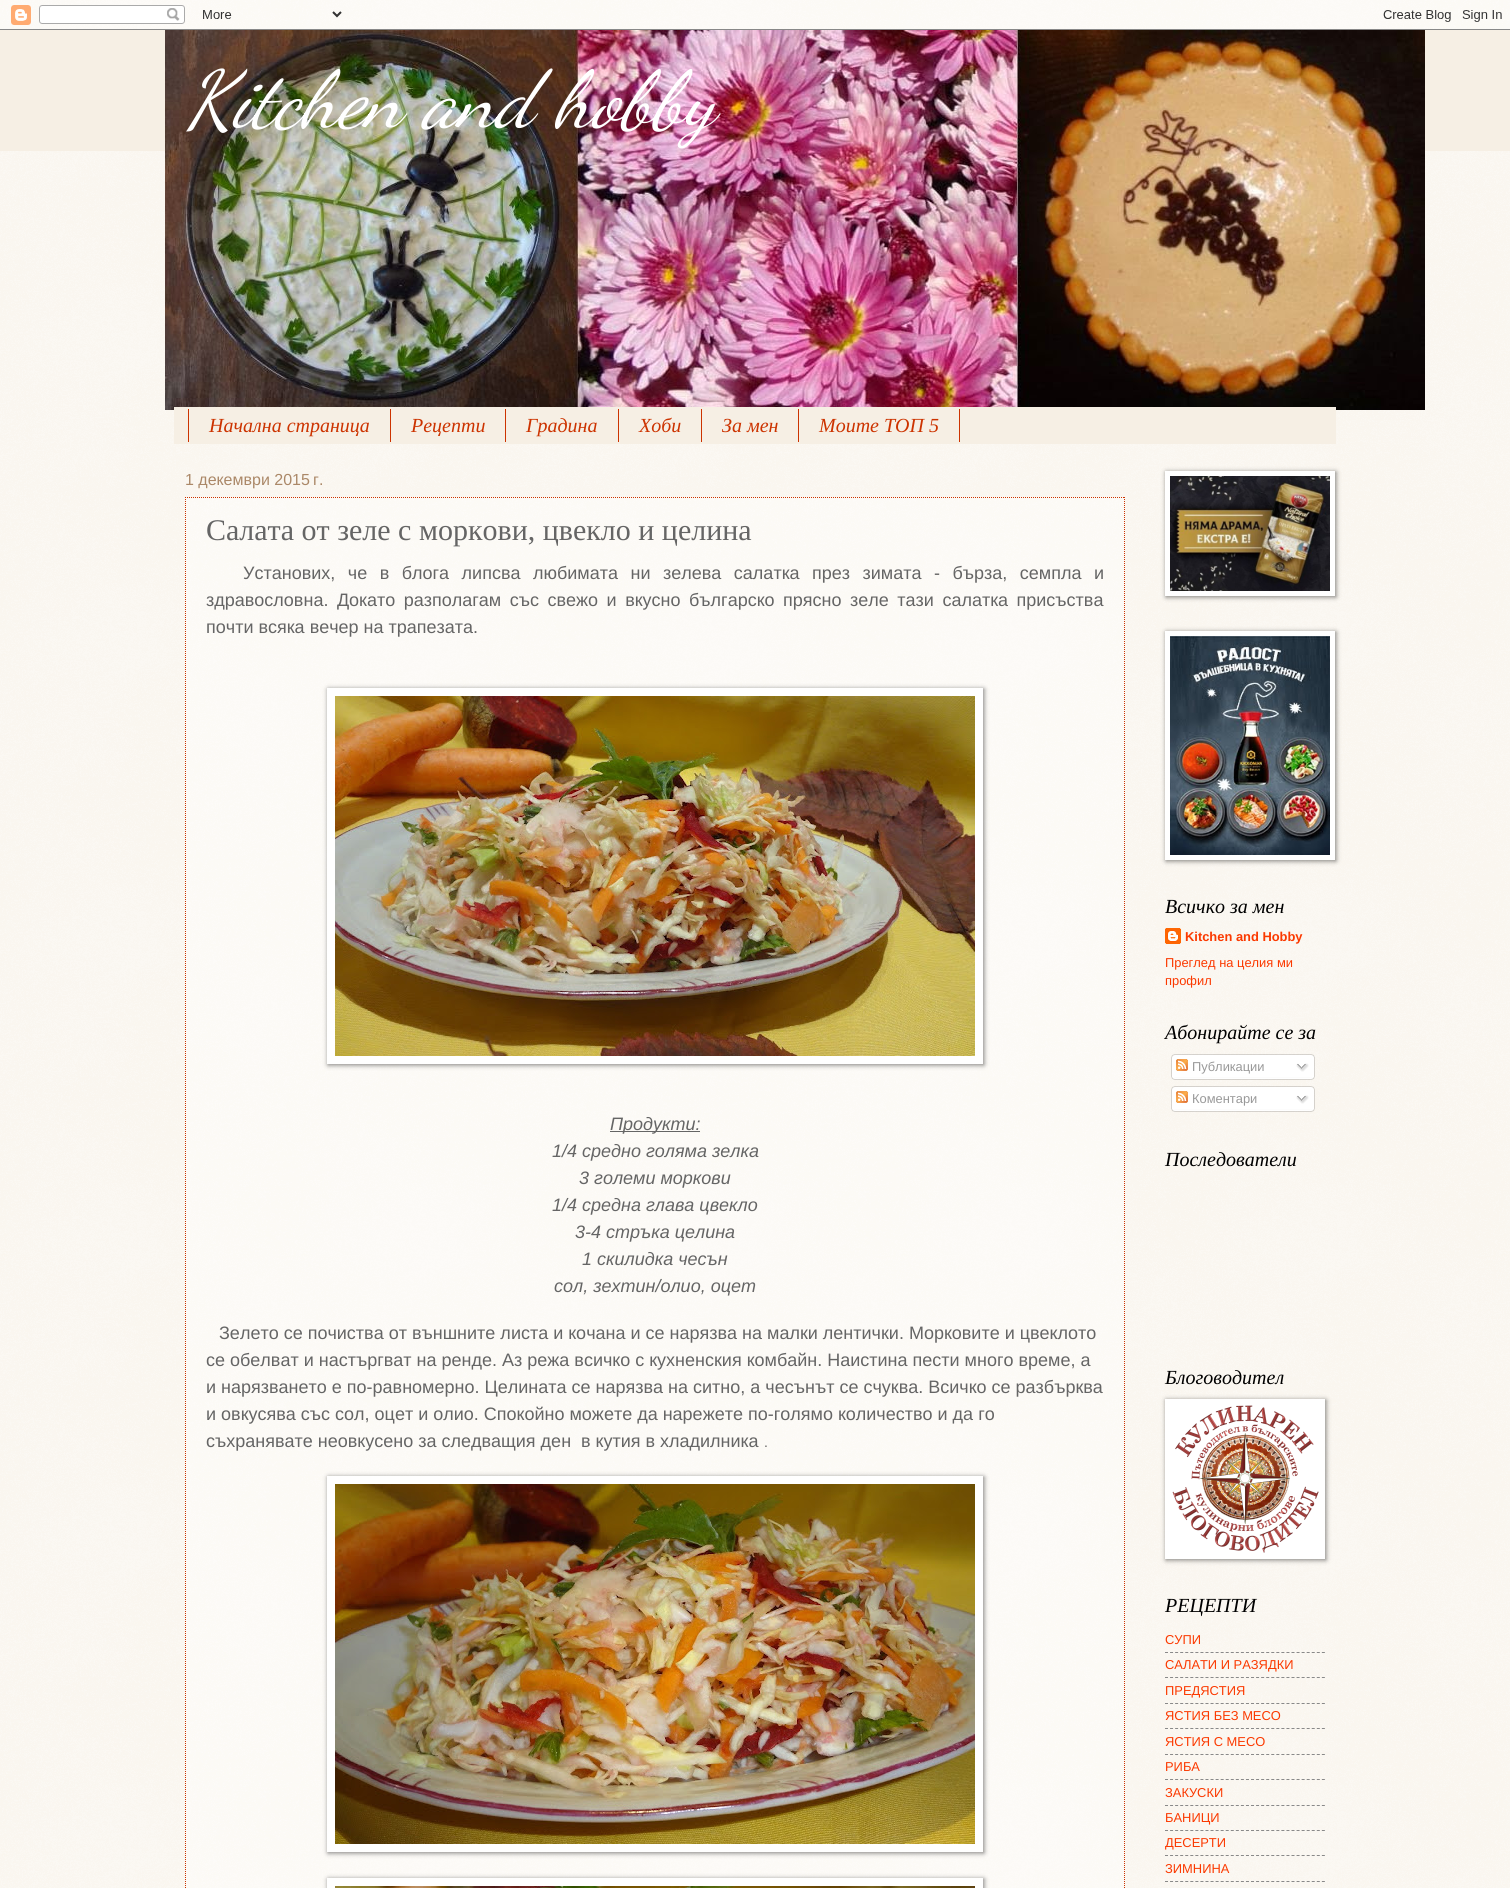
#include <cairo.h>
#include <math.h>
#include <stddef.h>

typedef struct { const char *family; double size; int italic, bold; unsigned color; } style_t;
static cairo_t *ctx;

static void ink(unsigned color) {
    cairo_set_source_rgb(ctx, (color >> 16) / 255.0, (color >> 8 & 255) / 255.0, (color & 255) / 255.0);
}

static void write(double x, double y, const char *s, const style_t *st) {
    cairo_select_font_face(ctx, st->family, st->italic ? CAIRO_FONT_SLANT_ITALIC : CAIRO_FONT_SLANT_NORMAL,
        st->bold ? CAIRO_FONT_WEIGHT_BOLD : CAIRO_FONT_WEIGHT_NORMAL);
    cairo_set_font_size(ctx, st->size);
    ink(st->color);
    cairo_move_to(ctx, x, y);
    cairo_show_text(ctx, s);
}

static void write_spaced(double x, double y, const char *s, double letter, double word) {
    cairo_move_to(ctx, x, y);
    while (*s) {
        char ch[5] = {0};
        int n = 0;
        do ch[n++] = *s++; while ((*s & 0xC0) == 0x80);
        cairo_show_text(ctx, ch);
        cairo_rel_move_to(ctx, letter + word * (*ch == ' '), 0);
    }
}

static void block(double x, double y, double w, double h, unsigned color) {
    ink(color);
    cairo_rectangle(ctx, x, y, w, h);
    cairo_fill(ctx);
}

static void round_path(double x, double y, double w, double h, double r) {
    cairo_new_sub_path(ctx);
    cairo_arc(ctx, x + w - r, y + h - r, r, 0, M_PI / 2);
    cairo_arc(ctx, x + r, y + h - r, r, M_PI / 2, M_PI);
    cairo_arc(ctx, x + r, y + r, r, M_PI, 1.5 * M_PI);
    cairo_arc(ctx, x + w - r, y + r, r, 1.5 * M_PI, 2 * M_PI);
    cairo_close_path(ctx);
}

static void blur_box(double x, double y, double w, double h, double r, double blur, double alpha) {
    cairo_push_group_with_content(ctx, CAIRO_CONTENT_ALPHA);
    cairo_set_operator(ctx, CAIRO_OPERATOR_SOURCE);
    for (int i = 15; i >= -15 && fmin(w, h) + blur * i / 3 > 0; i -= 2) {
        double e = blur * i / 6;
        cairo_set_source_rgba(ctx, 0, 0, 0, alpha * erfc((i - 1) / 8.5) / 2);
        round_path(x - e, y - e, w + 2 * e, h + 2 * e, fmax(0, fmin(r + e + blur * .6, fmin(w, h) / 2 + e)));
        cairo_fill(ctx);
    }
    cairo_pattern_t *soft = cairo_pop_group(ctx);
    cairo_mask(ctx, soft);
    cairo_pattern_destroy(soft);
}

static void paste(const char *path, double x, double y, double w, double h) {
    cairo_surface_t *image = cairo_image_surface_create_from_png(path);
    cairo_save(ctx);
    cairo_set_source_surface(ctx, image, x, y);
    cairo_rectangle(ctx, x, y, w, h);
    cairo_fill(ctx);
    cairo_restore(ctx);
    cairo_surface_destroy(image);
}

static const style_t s1 = {"Dancing Script", 80, 1, 0, 0xffffff};
static const style_t s2 = {"Liberation Serif", 20, 1, 0, 0xcc3300};
static const style_t s3 = {"Liberation Sans", 16, 0, 0, 0xab8868};
static const style_t s4 = {"Liberation Serif", 30, 0, 0, 0x656565};
static const style_t s5 = {"Liberation Sans", 18, 0, 0, 0x656565};
static const style_t s6 = {"Liberation Sans", 18, 1, 0, 0x656565};
static const style_t s7 = {"Liberation Sans", 14, 0, 0, 0x656565};
static const style_t s8 = {"Liberation Serif", 20, 1, 0, 0x000000};
static const style_t s9 = {"Liberation Sans", 12.9, 0, 1, 0xfb3900};
static const style_t s10 = {"Liberation Sans", 12.9, 0, 0, 0xfb3900};
static const style_t s11 = {"Liberation Sans", 12.9, 0, 0, 0x999999};

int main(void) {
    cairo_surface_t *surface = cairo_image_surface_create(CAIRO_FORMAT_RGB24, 1510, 1888);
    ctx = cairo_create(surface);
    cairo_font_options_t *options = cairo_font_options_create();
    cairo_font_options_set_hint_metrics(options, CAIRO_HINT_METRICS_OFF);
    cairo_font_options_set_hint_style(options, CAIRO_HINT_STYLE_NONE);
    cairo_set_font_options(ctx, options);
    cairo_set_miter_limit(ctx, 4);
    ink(0xf6efe4);
    cairo_paint(ctx);
    paste("pic1.png", 0, 0, 1510, 1888);
    paste("pic2.png", 0, 0, 1510, 30);
    block(0, 30, 1510, 121, 0xf6efe4);
    paste("pic3.png", 165, 30, 1260, 380);
    write(185, 126, "Kitchen and hobby", &s1);
    block(174, 407, 1162, 37, 0xf6efe4);
    block(390, 409, 1, 33, 0xcc3300);
    block(188, 409, 1, 33, 0xcc3300);
    write(209, 432, "Начална страница", &s2);
    block(505, 409, 1, 33, 0xcc3300);
    write(411, 432, "Рецепти", &s2);
    block(618, 409, 1, 33, 0xcc3300);
    write(526, 432, "Градина", &s2);
    block(701, 409, 1, 33, 0xcc3300);
    write(639, 432, "Хоби", &s2);
    block(798, 409, 1, 33, 0xcc3300);
    write(722, 432, "За мен", &s2);
    block(959, 409, 1, 33, 0xcc3300);
    write(819, 432, "Моите ТОП 5", &s2);
    write(185, 485, "1 декември 2015 г.", &s3);
    cairo_set_source_rgba(ctx, 1, 1, 1, 0.4);
    cairo_rectangle(ctx, 185, 497, 940, 1391);
    cairo_fill(ctx);
    cairo_new_path(ctx);
    cairo_move_to(ctx, 185, 497.5);
    cairo_line_to(ctx, 1125, 497.5);
    ink(0xcc3300);
    cairo_set_line_width(ctx, 1);
    cairo_set_dash(ctx, (double[]){1, 1}, 2, 0);
    cairo_stroke(ctx);
    cairo_new_path(ctx);
    cairo_move_to(ctx, 1124.5, 497);
    cairo_line_to(ctx, 1124.5, 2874);
    cairo_stroke(ctx);
    cairo_new_path(ctx);
    cairo_move_to(ctx, 185.5, 497);
    cairo_line_to(ctx, 185.5, 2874);
    cairo_stroke(ctx);
    write(206, 540, "Салата от зеле с моркови, цвекло и целина", &s4);
    cairo_select_font_face(ctx, "Liberation Sans", CAIRO_FONT_SLANT_NORMAL, CAIRO_FONT_WEIGHT_NORMAL);
    cairo_set_font_size(ctx, 18);
    write_spaced(243, 579, "Установих, че в блога липсва любимата ни зелева салатка през зимата - бърза, семпла и", 0, 7.5);
    write_spaced(206, 606, "здравословна. Докато разполагам със свежо и вкусно българско прясно зеле тази салатка присъства", 0, 3.5);
    write(206, 633, "почти всяка вечер на трапезата.", &s5);
    ink(0x000000);
    blur_box(328, 689, 656, 376, 0, 2.5, 0.5);
    block(327, 688, 656, 376, 0xffffff);
    paste("pic4.png", 335, 696, 640, 360);
    block(610, 1131, 90, 1, 0x656565);
    write(610, 1130, "Продукти:", &s6);
    write(552, 1157, "1/4 средно голяма зелка", &s6);
    write(579, 1184, "3 големи моркови", &s6);
    write(552, 1211, "1/4 средна глава цвекло", &s6);
    write(575, 1238, "3-4 стръка целина", &s6);
    write(582, 1265, "1 скилидка чесън", &s6);
    write(554, 1292, "сол, зехтин/олио, оцет", &s6);
    write(219, 1339, "Зелето се почиства от външните листа и кочана и се нарязва на малки лентички. Морковите и цвеклото", &s5);
    write(206, 1366, "се обелват и настъргват на ренде. Аз режа всичко с кухненския комбайн. Наистина пести много време, а", &s5);
    write(206, 1393, "и нарязването е по-равномерно. Целината се нарязва на ситно, а чесънът се счуква. Всичко се разбърква", &s5);
    write(206, 1420, "и овкусява със сол, оцет и олио. Спокойно можете да нарежете по-голямо количество и да го", &s5);
    write(206, 1447, "съхранявате неовкусено за следващия ден", &s5);
    write(581, 1447, "в кутия в хладилника", &s5);
    write(764, 1447, ".", &s7);
    ink(0x000000);
    blur_box(328, 1477, 656, 376, 0, 2.5, 0.5);
    block(327, 1476, 656, 376, 0xffffff);
    paste("pic5.png", 335, 1484, 640, 360);
    ink(0x000000);
    blur_box(328, 1879, 656, 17, 0, 2.5, 0.5);
    block(327, 1878, 656, 10, 0xffffff);
    paste("pic6.png", 335, 1886, 640, 2);
    ink(0x000000);
    blur_box(1166, 472, 170, 125, 0, 2.5, 0.5);
    block(1165, 471, 170, 125, 0xffffff);
    paste("pic7.png", 1170, 476, 160, 115);
    ink(0x000000);
    blur_box(1166, 632, 170, 229, 0, 2.5, 0.5);
    block(1165, 631, 170, 229, 0xffffff);
    paste("pic8.png", 1170, 636, 160, 219);
    write(1165, 913, "Всичко за мен", &s8);
    paste("pic9.png", 1165, 928, 16, 16);
    write(1185, 941, "Kitchen and Hobby", &s9);
    write(1165, 967, "Преглед на целия ми", &s10);
    write(1165, 985, "профил", &s10);
    write(1165, 1039, "Абонирайте се за", &s8);
    paste("pic10.png", 1171, 1054, 144, 23);
    paste("pic11.png", 1176, 1059, 12, 12);
    write(1192, 1071, "Публикации", &s11);
    paste("pic12.png", 1296, 1063, 13, 9);
    paste("pic13.png", 1171, 1077, 144, 3);
    paste("pic14.png", 1171, 1086, 144, 23);
    paste("pic11.png", 1176, 1091, 12, 12);
    write(1192, 1103, "Коментари", &s11);
    paste("pic12.png", 1296, 1095, 13, 9);
    paste("pic15.png", 1171, 1109, 144, 3);
    write(1165, 1166, "Последователи", &s8);
    write(1165, 1384, "Блоговодител", &s8);
    ink(0x000000);
    blur_box(1166, 1400, 160, 160, 0, 2.5, 0.5);
    block(1165, 1399, 160, 160, 0xffffff);
    paste("pic16.png", 1172, 1405, 147, 148);
    write(1165, 1612, "РЕЦЕПТИ", &s8);
    write(1165, 1644, "СУПИ", &s10);
    cairo_new_path(ctx);
    cairo_move_to(ctx, 1165, 1652.5);
    cairo_line_to(ctx, 1325, 1652.5);
    ink(0x898989);
    cairo_set_dash(ctx, (double[]){3, 2.06}, 2, 0);
    cairo_stroke(ctx);
    write(1165, 1669, "САЛАТИ И РАЗЯДКИ", &s10);
    cairo_new_path(ctx);
    cairo_move_to(ctx, 1165, 1677.5);
    cairo_line_to(ctx, 1325, 1677.5);
    ink(0x898989);
    cairo_stroke(ctx);
    write(1165, 1695, "ПРЕДЯСТИЯ", &s10);
    cairo_new_path(ctx);
    cairo_move_to(ctx, 1165, 1703.5);
    cairo_line_to(ctx, 1325, 1703.5);
    ink(0x898989);
    cairo_stroke(ctx);
    write(1165, 1720, "ЯСТИЯ БЕЗ МЕСО", &s10);
    cairo_new_path(ctx);
    cairo_move_to(ctx, 1165, 1728.5);
    cairo_line_to(ctx, 1325, 1728.5);
    ink(0x898989);
    cairo_stroke(ctx);
    write(1165, 1746, "ЯСТИЯ С МЕСО", &s10);
    cairo_new_path(ctx);
    cairo_move_to(ctx, 1165, 1754.5);
    cairo_line_to(ctx, 1325, 1754.5);
    ink(0x898989);
    cairo_stroke(ctx);
    write(1165, 1771, "РИБА", &s10);
    cairo_new_path(ctx);
    cairo_move_to(ctx, 1165, 1779.5);
    cairo_line_to(ctx, 1325, 1779.5);
    ink(0x898989);
    cairo_stroke(ctx);
    write(1165, 1797, "ЗАКУСКИ", &s10);
    cairo_new_path(ctx);
    cairo_move_to(ctx, 1165, 1805.5);
    cairo_line_to(ctx, 1325, 1805.5);
    ink(0x898989);
    cairo_stroke(ctx);
    write(1165, 1822, "БАНИЦИ", &s10);
    cairo_new_path(ctx);
    cairo_move_to(ctx, 1165, 1830.5);
    cairo_line_to(ctx, 1325, 1830.5);
    ink(0x898989);
    cairo_stroke(ctx);
    write(1165, 1847, "ДЕСЕРТИ", &s10);
    cairo_new_path(ctx);
    cairo_move_to(ctx, 1165, 1855.5);
    cairo_line_to(ctx, 1325, 1855.5);
    ink(0x898989);
    cairo_stroke(ctx);
    write(1165, 1873, "ЗИМНИНА", &s10);
    cairo_new_path(ctx);
    cairo_move_to(ctx, 1165, 1881.5);
    cairo_line_to(ctx, 1325, 1881.5);
    ink(0x898989);
    cairo_stroke(ctx);
    cairo_surface_write_to_png(surface, "screenshot.png");
    cairo_font_options_destroy(options);
    cairo_destroy(ctx);
    cairo_surface_destroy(surface);
    return 0;
}
